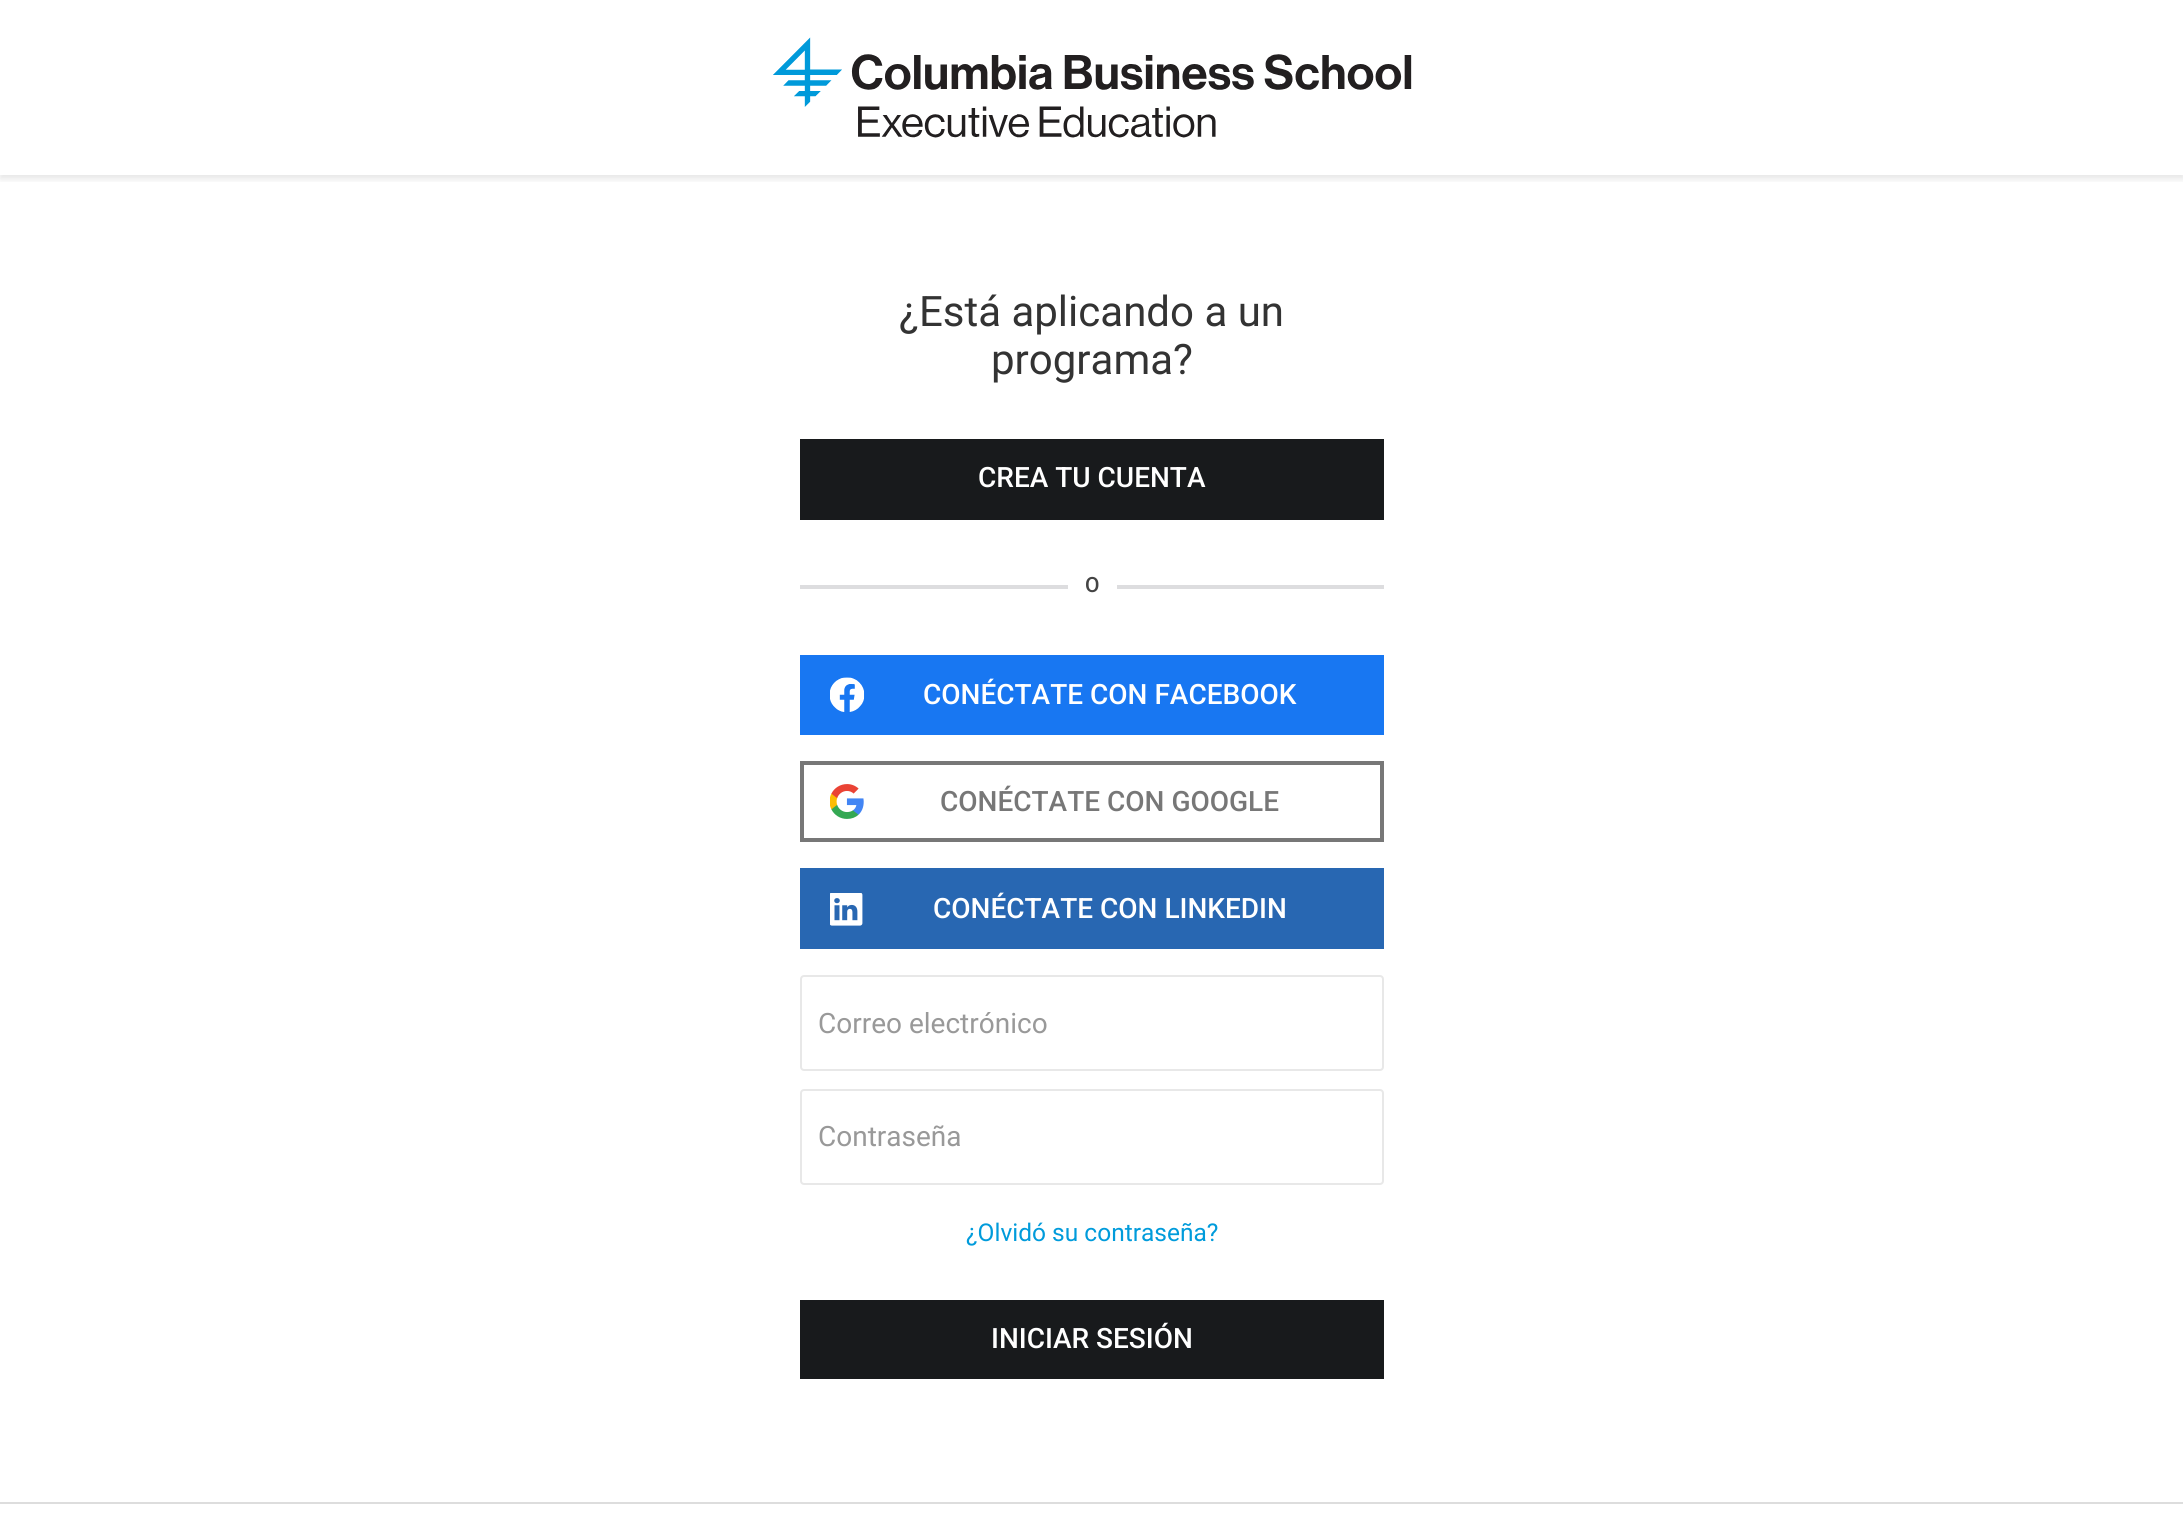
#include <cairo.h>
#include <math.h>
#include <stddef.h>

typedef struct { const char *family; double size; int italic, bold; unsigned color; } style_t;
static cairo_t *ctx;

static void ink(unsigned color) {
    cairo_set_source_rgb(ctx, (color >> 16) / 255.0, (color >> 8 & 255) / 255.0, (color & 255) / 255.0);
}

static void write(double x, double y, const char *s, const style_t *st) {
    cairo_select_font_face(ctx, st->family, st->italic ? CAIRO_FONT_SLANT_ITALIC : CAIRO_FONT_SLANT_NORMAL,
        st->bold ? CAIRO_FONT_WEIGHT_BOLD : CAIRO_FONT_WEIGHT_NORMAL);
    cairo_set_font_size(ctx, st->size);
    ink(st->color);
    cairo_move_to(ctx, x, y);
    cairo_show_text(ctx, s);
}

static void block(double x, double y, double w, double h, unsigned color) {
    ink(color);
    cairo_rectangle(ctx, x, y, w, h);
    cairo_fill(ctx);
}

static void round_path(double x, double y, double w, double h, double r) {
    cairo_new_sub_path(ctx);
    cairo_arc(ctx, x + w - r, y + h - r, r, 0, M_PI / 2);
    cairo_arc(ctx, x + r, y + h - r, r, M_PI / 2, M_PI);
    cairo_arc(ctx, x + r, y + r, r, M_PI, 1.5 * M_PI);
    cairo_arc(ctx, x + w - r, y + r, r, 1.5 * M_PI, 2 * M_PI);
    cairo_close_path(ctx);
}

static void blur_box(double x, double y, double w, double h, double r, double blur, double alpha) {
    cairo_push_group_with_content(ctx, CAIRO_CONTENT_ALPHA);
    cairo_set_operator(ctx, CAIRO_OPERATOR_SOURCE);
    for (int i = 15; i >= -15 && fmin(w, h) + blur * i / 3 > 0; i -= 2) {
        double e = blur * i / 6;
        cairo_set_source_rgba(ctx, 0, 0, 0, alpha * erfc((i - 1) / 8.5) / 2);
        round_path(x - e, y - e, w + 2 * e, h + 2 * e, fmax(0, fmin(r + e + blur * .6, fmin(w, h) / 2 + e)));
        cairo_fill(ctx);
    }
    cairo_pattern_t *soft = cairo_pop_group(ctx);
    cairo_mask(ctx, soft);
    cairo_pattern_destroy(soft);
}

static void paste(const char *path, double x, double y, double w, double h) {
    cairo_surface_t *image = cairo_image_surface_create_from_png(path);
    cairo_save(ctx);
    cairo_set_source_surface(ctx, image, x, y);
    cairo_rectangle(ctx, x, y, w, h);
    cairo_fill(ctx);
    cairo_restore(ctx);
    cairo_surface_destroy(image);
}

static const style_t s1 = {"Roboto", 42, 0, 0, 0x333333};
static const style_t s2 = {"Roboto Medium", 28, 0, 0, 0xffffff};
static const style_t s3 = {"Roboto Medium", 21, 0, 0, 0x444444};
static const style_t s4 = {"Roboto Medium", 28, 0, 0, 0x777777};
static const style_t s5 = {"Roboto", 28, 0, 0, 0x999999};
static const style_t s6 = {"Roboto", 24.5, 0, 0, 0x009bdb};

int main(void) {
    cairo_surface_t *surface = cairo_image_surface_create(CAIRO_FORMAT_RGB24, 2183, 1521);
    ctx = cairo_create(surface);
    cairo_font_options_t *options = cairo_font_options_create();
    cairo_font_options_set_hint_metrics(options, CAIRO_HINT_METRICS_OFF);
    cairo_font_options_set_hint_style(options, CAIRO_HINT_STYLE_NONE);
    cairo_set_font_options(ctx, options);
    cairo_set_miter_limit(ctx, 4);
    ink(0xffffff);
    cairo_paint(ctx);
    cairo_save(ctx);
    cairo_rectangle(ctx, 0, 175, 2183, 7);
    cairo_clip(ctx);
    ink(0x000000);
    blur_box(0, 4, 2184, 175, 0, 3.5, 0.1);
    cairo_restore(ctx);
    paste("pic1.png", 773, 37, 639, 101);
    write(899, 326, "¿Está aplicando a un", &s1);
    write(991, 374, "programa?", &s1);
    block(800, 439, 584, 81, 0x181a1c);
    write(978, 487, "CREA TU CUENTA", &s2);
    block(800, 585, 268, 4, 0xdddddf);
    write(1085, 592, "O", &s3);
    block(1117, 585, 267, 4, 0xdddddf);
    block(800, 655, 584, 80, 0x1877f2);
    paste("pic2.png", 830, 677, 35, 35);
    write(923, 704, "CONÉCTATE CON FACEBOOK", &s2);
    paste("pic3.png", 830, 784, 34, 35);
    cairo_rectangle(ctx, 802, 763, 580, 77);
    ink(0x777777);
    cairo_set_line_width(ctx, 4);
    cairo_stroke(ctx);
    write(940, 811, "CONÉCTATE CON GOOGLE", &s4);
    block(800, 868, 584, 81, 0x2867b2);
    paste("pic4.png", 830, 893, 33, 33);
    write(933, 918, "CONÉCTATE CON LINKEDIN", &s2);
    round_path(801, 976, 582, 94, 3);
    ink(0xe8e8e8);
    cairo_set_line_width(ctx, 2);
    cairo_stroke(ctx);
    write(818, 1033, "Correo electrónico", &s5);
    round_path(801, 1090, 582, 94, 3);
    ink(0xe8e8e8);
    cairo_stroke(ctx);
    write(818, 1146, "Contraseña", &s5);
    write(966, 1241, "¿Olvidó su contraseña?", &s6);
    block(800, 1300, 584, 79, 0x181a1c);
    write(991, 1348, "INICIAR SESIÓN", &s2);
    block(0, 1502, 2183, 2, 0xdddddd);
    cairo_surface_write_to_png(surface, "screenshot.png");
    cairo_font_options_destroy(options);
    cairo_destroy(ctx);
    cairo_surface_destroy(surface);
    return 0;
}
